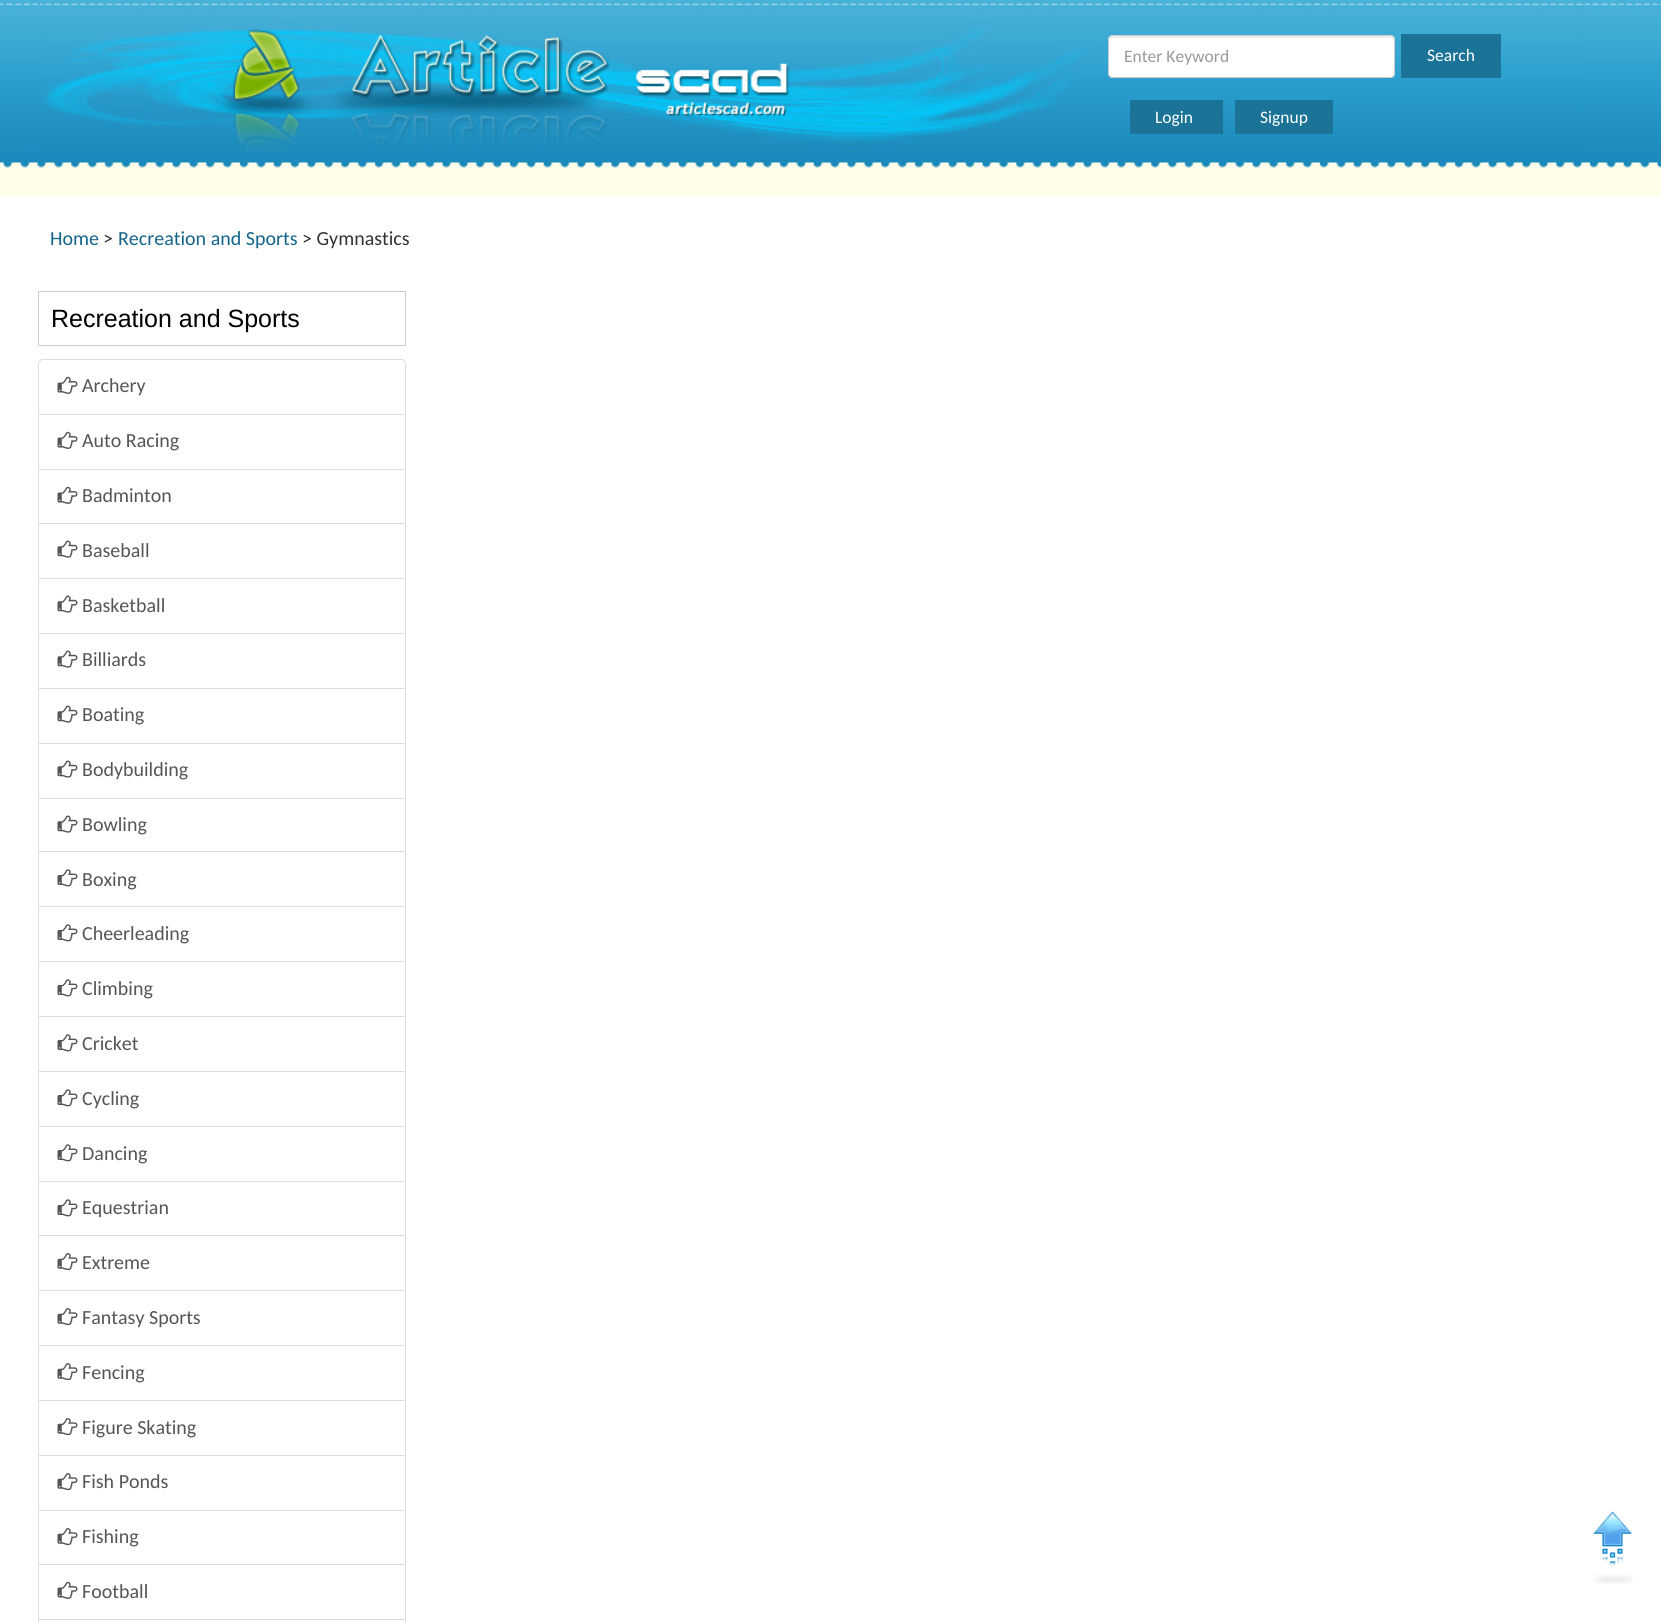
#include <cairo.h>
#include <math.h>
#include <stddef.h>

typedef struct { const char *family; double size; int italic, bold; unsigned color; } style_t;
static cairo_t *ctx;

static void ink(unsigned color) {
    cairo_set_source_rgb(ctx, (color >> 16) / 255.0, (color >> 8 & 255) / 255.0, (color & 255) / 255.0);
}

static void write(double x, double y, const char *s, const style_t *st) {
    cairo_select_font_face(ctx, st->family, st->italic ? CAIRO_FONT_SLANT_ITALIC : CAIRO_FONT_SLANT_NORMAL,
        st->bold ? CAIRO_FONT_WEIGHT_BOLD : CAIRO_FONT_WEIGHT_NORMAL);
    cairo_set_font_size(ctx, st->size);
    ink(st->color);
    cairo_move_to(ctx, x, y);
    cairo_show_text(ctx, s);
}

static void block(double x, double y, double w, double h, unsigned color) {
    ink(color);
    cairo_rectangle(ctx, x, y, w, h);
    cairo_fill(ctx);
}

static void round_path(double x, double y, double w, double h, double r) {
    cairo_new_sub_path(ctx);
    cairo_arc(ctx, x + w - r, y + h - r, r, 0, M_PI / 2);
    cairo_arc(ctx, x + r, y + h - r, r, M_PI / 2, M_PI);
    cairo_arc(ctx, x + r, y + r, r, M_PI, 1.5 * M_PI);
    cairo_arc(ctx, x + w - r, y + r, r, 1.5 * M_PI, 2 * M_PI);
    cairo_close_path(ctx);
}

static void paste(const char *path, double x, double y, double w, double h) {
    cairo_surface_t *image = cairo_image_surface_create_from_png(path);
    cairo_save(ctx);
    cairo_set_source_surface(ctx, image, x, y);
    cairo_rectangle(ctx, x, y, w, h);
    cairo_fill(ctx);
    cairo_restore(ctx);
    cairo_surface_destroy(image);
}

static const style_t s1 = {"Carlito", 17.5, 0, 0, 0x999999};
static const style_t s2 = {"Carlito", 17.5, 0, 0, 0xffffff};
static const style_t s3 = {"Carlito", 20, 0, 0, 0x13648a};
static const style_t s4 = {"Carlito", 20, 0, 0, 0x333333};
static const style_t s5 = {"Liberation Sans", 25, 0, 0, 0x000000};
static const style_t s6 = {"Carlito", 20, 0, 0, 0x555555};

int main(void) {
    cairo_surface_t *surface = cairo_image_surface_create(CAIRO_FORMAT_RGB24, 1661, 1622);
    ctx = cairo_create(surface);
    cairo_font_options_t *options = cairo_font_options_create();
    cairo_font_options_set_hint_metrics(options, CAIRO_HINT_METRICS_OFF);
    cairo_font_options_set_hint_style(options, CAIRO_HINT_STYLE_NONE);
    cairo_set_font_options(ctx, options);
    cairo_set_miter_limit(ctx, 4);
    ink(0xffffff);
    cairo_paint(ctx);
    paste("pic1.png", 0, 0, 1661, 197);
    paste("pic2.png", 41, 0, 1543, 151);
    ink(0xffffff);
    round_path(1108, 35, 287, 43, 5);
    cairo_fill(ctx);
    ink(0xececec);
    cairo_new_path(ctx);
    cairo_move_to(ctx, 1112, 38);
    cairo_line_to(ctx, 1390, 38);
    cairo_curve_to(ctx, 1392, 38, 1394, 39, 1394, 41);
    cairo_curve_to(ctx, 1394, 38, 1393, 36, 1390, 36);
    cairo_line_to(ctx, 1113, 36);
    cairo_curve_to(ctx, 1110, 36, 1109, 38, 1109, 41);
    cairo_curve_to(ctx, 1109, 39, 1110, 38, 1112, 38);
    cairo_close_path(ctx);
    cairo_fill(ctx);
    round_path(1108.5, 35.5, 286, 42, 4.5);
    ink(0xcccccc);
    cairo_set_line_width(ctx, 1);
    cairo_stroke(ctx);
    write(1124, 62, "Enter Keyword", &s1);
    block(1401, 34, 100, 44, 0x1b7398);
    write(1427, 61, "Search", &s2);
    block(1130, 100, 93, 34, 0x1b7398);
    write(1155, 123, "Login", &s2);
    block(1235, 100, 98, 34, 0x1b7398);
    write(1260, 123, "Signup", &s2);
    write(50, 245, "Home", &s3);
    write(103, 245, ">", &s4);
    write(118, 245, "Recreation and Sports", &s3);
    write(302, 245, "> Gymnastics", &s4);
    cairo_rectangle(ctx, 38.5, 291.5, 367, 54);
    ink(0xcccccc);
    cairo_stroke(ctx);
    write(51, 327, "Recreation and Sports", &s5);
    cairo_new_path(ctx);
    cairo_move_to(ctx, 43, 359.5);
    cairo_line_to(ctx, 401, 359.5);
    cairo_curve_to(ctx, 403.5, 359.5, 405.5, 361.5, 405.5, 364);
    cairo_line_to(ctx, 405.5, 414.5);
    cairo_line_to(ctx, 38.5, 414.5);
    cairo_line_to(ctx, 38.5, 364);
    cairo_curve_to(ctx, 38.5, 361.5, 40.5, 359.5, 43, 359.5);
    cairo_close_path(ctx);
    ink(0xdddddd);
    cairo_stroke(ctx);
    paste("pic3.png", 57, 376, 21, 18);
    write(82, 392, "Archery", &s6);
    cairo_rectangle(ctx, 38.5, 414.5, 367, 55);
    ink(0xdddddd);
    cairo_stroke(ctx);
    paste("pic3.png", 57, 431, 21, 18);
    write(82, 447, "Auto Racing", &s6);
    cairo_rectangle(ctx, 38.5, 469.5, 367, 54);
    ink(0xdddddd);
    cairo_stroke(ctx);
    paste("pic3.png", 57, 486, 21, 18);
    write(82, 502, "Badminton", &s6);
    cairo_rectangle(ctx, 38.5, 523.5, 367, 55);
    ink(0xdddddd);
    cairo_stroke(ctx);
    paste("pic4.png", 57, 540, 21, 18);
    write(82, 557, "Baseball", &s6);
    cairo_rectangle(ctx, 38.5, 578.5, 367, 55);
    ink(0xdddddd);
    cairo_stroke(ctx);
    paste("pic4.png", 57, 595, 21, 18);
    write(82, 612, "Basketball", &s6);
    cairo_rectangle(ctx, 38.5, 633.5, 367, 55);
    ink(0xdddddd);
    cairo_stroke(ctx);
    paste("pic4.png", 57, 650, 21, 18);
    write(82, 666, "Billiards", &s6);
    cairo_rectangle(ctx, 38.5, 688.5, 367, 55);
    ink(0xdddddd);
    cairo_stroke(ctx);
    paste("pic4.png", 57, 705, 21, 18);
    write(82, 721, "Boating", &s6);
    cairo_rectangle(ctx, 38.5, 743.5, 367, 55);
    ink(0xdddddd);
    cairo_stroke(ctx);
    paste("pic4.png", 57, 760, 21, 18);
    write(82, 776, "Bodybuilding", &s6);
    cairo_rectangle(ctx, 38.5, 798.5, 367, 54);
    ink(0xdddddd);
    cairo_stroke(ctx);
    paste("pic4.png", 57, 815, 21, 18);
    write(82, 831, "Bowling", &s6);
    block(39, 852, 366, 1, 0xffffff);
    cairo_rectangle(ctx, 38.5, 851.5, 367, 56);
    ink(0xdddddd);
    cairo_stroke(ctx);
    paste("pic5.png", 57, 869, 21, 18);
    write(82, 886, "Boxing", &s6);
    block(39, 907, 366, 1, 0xffffff);
    cairo_rectangle(ctx, 38.5, 906.5, 367, 56);
    ink(0xdddddd);
    cairo_stroke(ctx);
    paste("pic5.png", 57, 924, 21, 18);
    write(82, 940, "Cheerleading", &s6);
    block(39, 962, 366, 1, 0xffffff);
    cairo_rectangle(ctx, 38.5, 961.5, 367, 56);
    ink(0xdddddd);
    cairo_stroke(ctx);
    paste("pic5.png", 57, 979, 21, 18);
    write(82, 995, "Climbing", &s6);
    block(39, 1017, 366, 1, 0xffffff);
    cairo_rectangle(ctx, 38.5, 1016.5, 367, 56);
    ink(0xdddddd);
    cairo_stroke(ctx);
    paste("pic5.png", 57, 1034, 21, 18);
    write(82, 1050, "Cricket", &s6);
    block(39, 1072, 366, 1, 0xffffff);
    cairo_rectangle(ctx, 38.5, 1071.5, 367, 56);
    ink(0xdddddd);
    cairo_stroke(ctx);
    paste("pic5.png", 57, 1089, 21, 18);
    write(82, 1105, "Cycling", &s6);
    block(39, 1127, 366, 1, 0xffffff);
    cairo_rectangle(ctx, 38.5, 1126.5, 367, 56);
    ink(0xdddddd);
    cairo_stroke(ctx);
    paste("pic5.png", 57, 1144, 21, 18);
    write(82, 1160, "Dancing", &s6);
    block(39, 1182, 366, 1, 0xffffff);
    cairo_rectangle(ctx, 38.5, 1181.5, 367, 54);
    ink(0xdddddd);
    cairo_stroke(ctx);
    paste("pic5.png", 57, 1199, 21, 18);
    write(82, 1214, "Equestrian", &s6);
    cairo_rectangle(ctx, 38.5, 1235.5, 367, 55);
    ink(0xdddddd);
    cairo_stroke(ctx);
    paste("pic6.png", 57, 1253, 21, 18);
    write(82, 1269, "Extreme", &s6);
    cairo_rectangle(ctx, 38.5, 1290.5, 367, 55);
    ink(0xdddddd);
    cairo_stroke(ctx);
    paste("pic6.png", 57, 1308, 21, 18);
    write(82, 1324, "Fantasy Sports", &s6);
    cairo_rectangle(ctx, 38.5, 1345.5, 367, 55);
    ink(0xdddddd);
    cairo_stroke(ctx);
    paste("pic6.png", 57, 1363, 21, 18);
    write(82, 1379, "Fencing", &s6);
    cairo_rectangle(ctx, 38.5, 1400.5, 367, 55);
    ink(0xdddddd);
    cairo_stroke(ctx);
    paste("pic6.png", 57, 1418, 21, 18);
    write(82, 1434, "Figure Skating", &s6);
    cairo_rectangle(ctx, 38.5, 1455.5, 367, 55);
    ink(0xdddddd);
    cairo_stroke(ctx);
    paste("pic6.png", 57, 1473, 21, 18);
    write(82, 1488, "Fish Ponds", &s6);
    cairo_rectangle(ctx, 38.5, 1510.5, 367, 54);
    ink(0xdddddd);
    cairo_stroke(ctx);
    paste("pic6.png", 57, 1528, 21, 18);
    write(82, 1543, "Fishing", &s6);
    cairo_rectangle(ctx, 38.5, 1564.5, 367, 55);
    ink(0xdddddd);
    cairo_stroke(ctx);
    paste("pic3.png", 57, 1581, 21, 18);
    write(82, 1598, "Football", &s6);
    cairo_rectangle(ctx, 38.5, 1619.5, 367, 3);
    ink(0xdddddd);
    cairo_stroke(ctx);
    paste("pic7.png", 1593, 1511, 40, 73);
    cairo_surface_write_to_png(surface, "screenshot.png");
    cairo_font_options_destroy(options);
    cairo_destroy(ctx);
    cairo_surface_destroy(surface);
    return 0;
}
